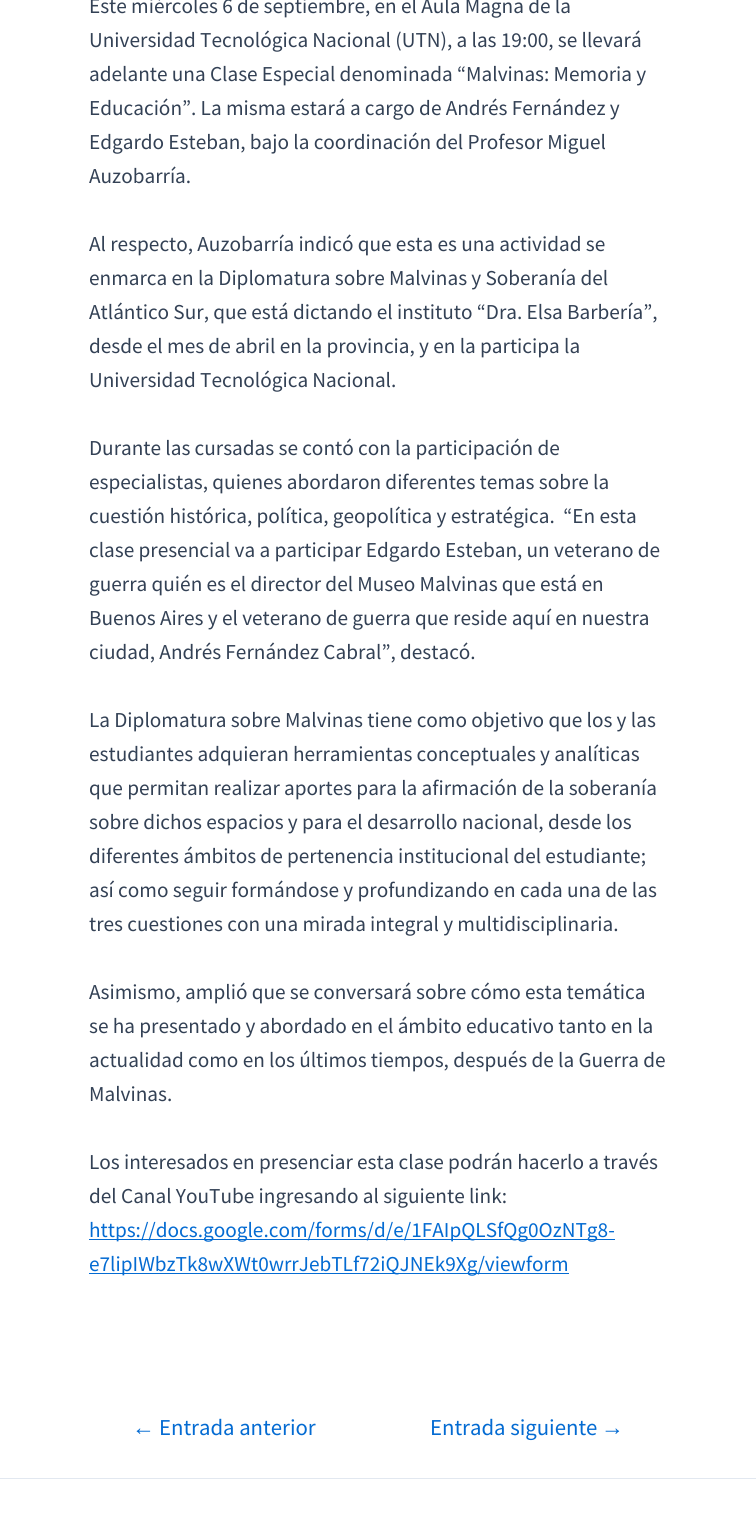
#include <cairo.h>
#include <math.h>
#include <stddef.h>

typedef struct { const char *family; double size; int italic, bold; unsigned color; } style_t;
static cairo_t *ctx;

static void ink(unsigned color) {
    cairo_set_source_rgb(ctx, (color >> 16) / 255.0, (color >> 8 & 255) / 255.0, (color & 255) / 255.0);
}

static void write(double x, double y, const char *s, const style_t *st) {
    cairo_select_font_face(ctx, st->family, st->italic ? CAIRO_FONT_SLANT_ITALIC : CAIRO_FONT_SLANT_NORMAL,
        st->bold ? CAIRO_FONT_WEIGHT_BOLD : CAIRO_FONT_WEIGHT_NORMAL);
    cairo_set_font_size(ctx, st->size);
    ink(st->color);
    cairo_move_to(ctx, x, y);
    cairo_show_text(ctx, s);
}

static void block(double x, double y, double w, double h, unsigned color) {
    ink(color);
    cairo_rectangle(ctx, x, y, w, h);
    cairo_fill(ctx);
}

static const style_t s1 = {"Source Sans Pro", 21.25, 0, 0, 0x334155};
static const style_t s2 = {"Source Sans Pro", 21.25, 0, 0, 0x046bd2};
static const style_t s3 = {"Liberation Sans", 22.75, 0, 0, 0x046bd2};
static const style_t s4 = {"Source Sans Pro", 22.75, 0, 0, 0x046bd2};

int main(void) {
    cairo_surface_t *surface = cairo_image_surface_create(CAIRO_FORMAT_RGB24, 756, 1517);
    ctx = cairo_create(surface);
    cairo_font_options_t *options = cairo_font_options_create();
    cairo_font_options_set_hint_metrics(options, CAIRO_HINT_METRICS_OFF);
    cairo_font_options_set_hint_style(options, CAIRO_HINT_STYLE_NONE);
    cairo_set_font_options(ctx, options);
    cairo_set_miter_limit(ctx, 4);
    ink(0xffffff);
    cairo_paint(ctx);
    write(89, 13, "Este miércoles 6 de septiembre, en el Aula Magna de la", &s1);
    write(89, 47, "Universidad Tecnológica Nacional (UTN), a las 19:00, se llevará", &s1);
    write(89, 81, "adelante una Clase Especial denominada “Malvinas: Memoria y", &s1);
    write(89, 115, "Educación”. La misma estará a cargo de Andrés Fernández y", &s1);
    write(89, 149, "Edgardo Esteban, bajo la coordinación del Profesor Miguel", &s1);
    write(89, 183, "Auzobarría.", &s1);
    write(89, 251, "Al respecto, Auzobarría indicó que esta es una actividad se", &s1);
    write(89, 285, "enmarca en la Diplomatura sobre Malvinas y Soberanía del", &s1);
    write(89, 319, "Atlántico Sur, que está dictando el instituto “Dra. Elsa Barbería”,", &s1);
    write(89, 353, "desde el mes de abril en la provincia, y en la participa la", &s1);
    write(89, 387, "Universidad Tecnológica Nacional.", &s1);
    write(89, 455, "Durante las cursadas se contó con la participación de", &s1);
    write(89, 489, "especialistas, quienes abordaron diferentes temas sobre la", &s1);
    write(89, 523, "cuestión histórica, política, geopolítica y estratégica.  “En esta", &s1);
    write(89, 557, "clase presencial va a participar Edgardo Esteban, un veterano de", &s1);
    write(89, 591, "guerra quién es el director del Museo Malvinas que está en", &s1);
    write(89, 625, "Buenos Aires y el veterano de guerra que reside aquí en nuestra", &s1);
    write(89, 659, "ciudad, Andrés Fernández Cabral”, destacó.", &s1);
    write(89, 727, "La Diplomatura sobre Malvinas tiene como objetivo que los y las", &s1);
    write(89, 761, "estudiantes adquieran herramientas conceptuales y analíticas", &s1);
    write(89, 795, "que permitan realizar aportes para la afirmación de la soberanía", &s1);
    write(89, 829, "sobre dichos espacios y para el desarrollo nacional, desde los", &s1);
    write(89, 863, "diferentes ámbitos de pertenencia institucional del estudiante;", &s1);
    write(89, 897, "así como seguir formándose y profundizando en cada una de las", &s1);
    write(89, 931, "tres cuestiones con una mirada integral y multidisciplinaria.", &s1);
    write(89, 999, "Asimismo, amplió que se conversará sobre cómo esta temática", &s1);
    write(89, 1033, "se ha presentado y abordado en el ámbito educativo tanto en la", &s1);
    write(89, 1067, "actualidad como en los últimos tiempos, después de la Guerra de", &s1);
    write(89, 1101, "Malvinas.", &s1);
    write(89, 1169, "Los interesados en presenciar esta clase podrán hacerlo a través", &s1);
    write(89, 1203, "del Canal YouTube ingresando al siguiente link:", &s1);
    block(89, 1239, 526, 1, 0x046bd2);
    write(89, 1237, "https://docs.google.com/forms/d/e/1FAIpQLSfQg0OzNTg8-", &s2);
    block(89, 1273, 480, 1, 0x046bd2);
    write(89, 1271, "e7lipIWbzTk8wXWt0wrrJebTLf72iQJNEk9Xg/viewform", &s2);
    write(132, 1435, "←", &s3);
    write(159, 1435, "Entrada anterior", &s4);
    write(430, 1435, "Entrada siguiente", &s4);
    write(601, 1435, "→", &s3);
    block(0, 1478, 756, 1, 0xe2e8f0);
    cairo_surface_write_to_png(surface, "screenshot.png");
    cairo_font_options_destroy(options);
    cairo_destroy(ctx);
    cairo_surface_destroy(surface);
    return 0;
}
